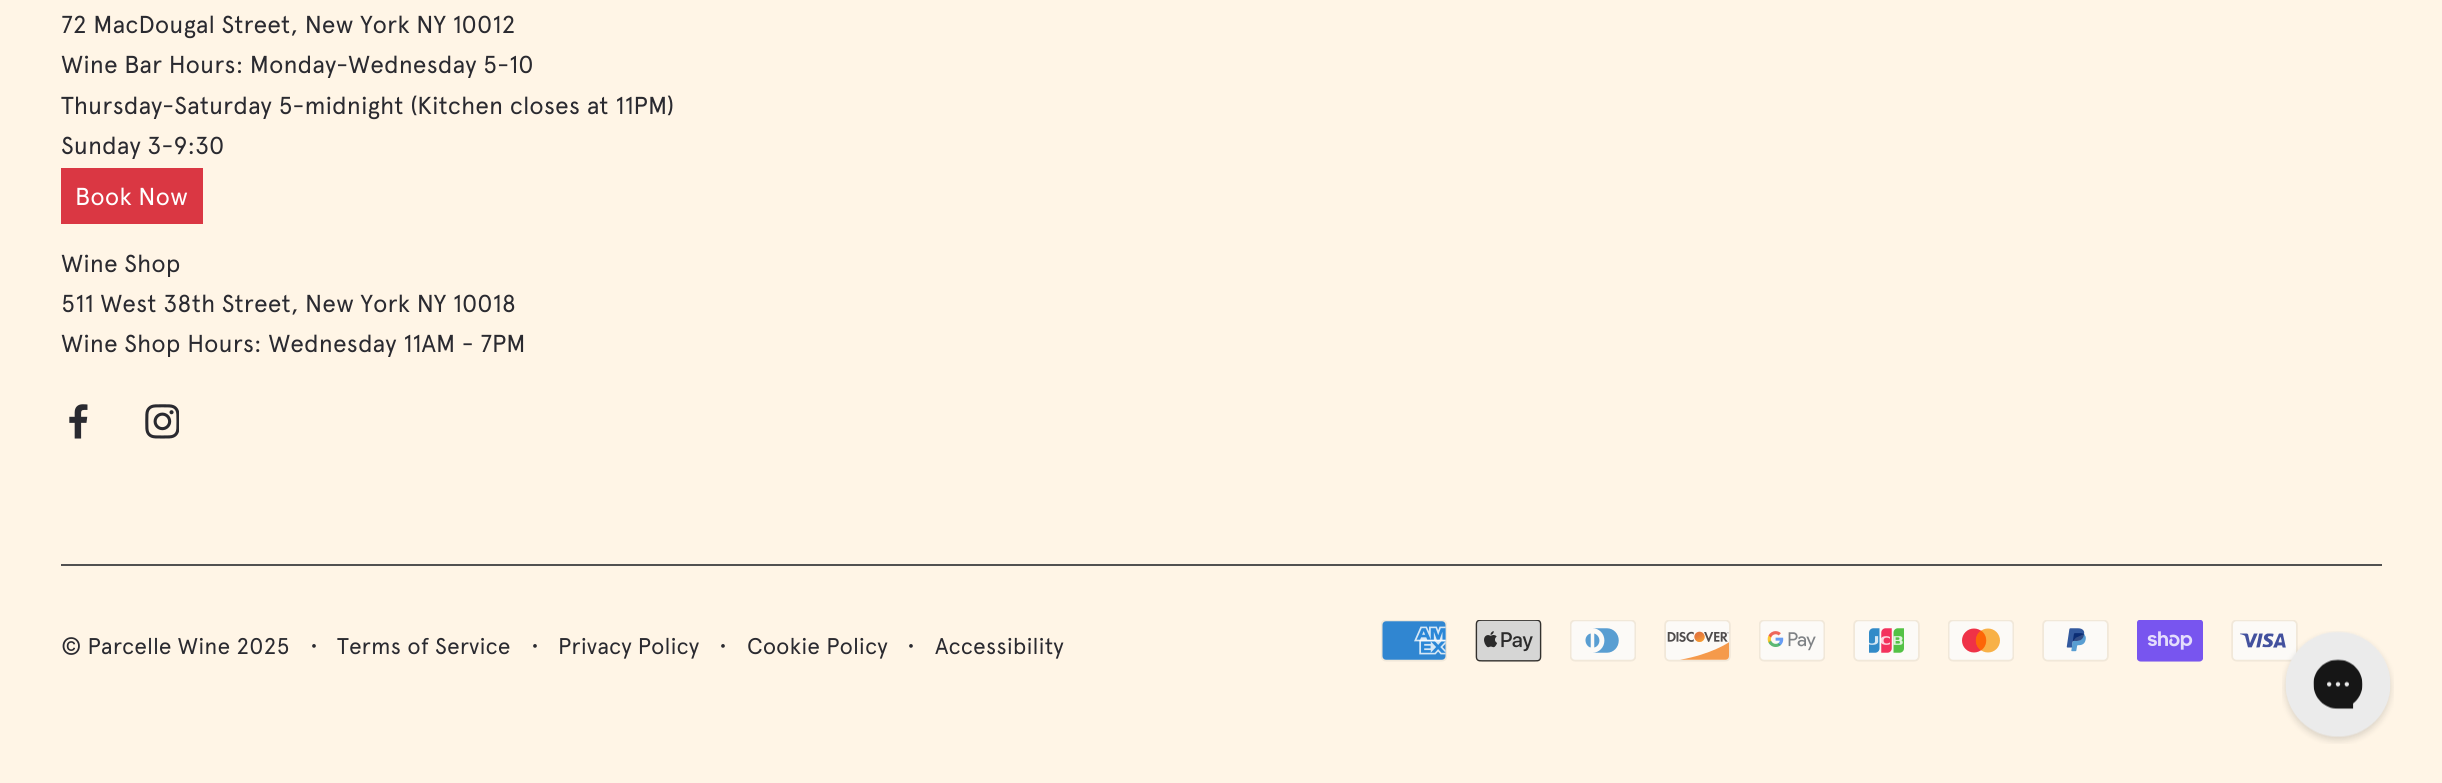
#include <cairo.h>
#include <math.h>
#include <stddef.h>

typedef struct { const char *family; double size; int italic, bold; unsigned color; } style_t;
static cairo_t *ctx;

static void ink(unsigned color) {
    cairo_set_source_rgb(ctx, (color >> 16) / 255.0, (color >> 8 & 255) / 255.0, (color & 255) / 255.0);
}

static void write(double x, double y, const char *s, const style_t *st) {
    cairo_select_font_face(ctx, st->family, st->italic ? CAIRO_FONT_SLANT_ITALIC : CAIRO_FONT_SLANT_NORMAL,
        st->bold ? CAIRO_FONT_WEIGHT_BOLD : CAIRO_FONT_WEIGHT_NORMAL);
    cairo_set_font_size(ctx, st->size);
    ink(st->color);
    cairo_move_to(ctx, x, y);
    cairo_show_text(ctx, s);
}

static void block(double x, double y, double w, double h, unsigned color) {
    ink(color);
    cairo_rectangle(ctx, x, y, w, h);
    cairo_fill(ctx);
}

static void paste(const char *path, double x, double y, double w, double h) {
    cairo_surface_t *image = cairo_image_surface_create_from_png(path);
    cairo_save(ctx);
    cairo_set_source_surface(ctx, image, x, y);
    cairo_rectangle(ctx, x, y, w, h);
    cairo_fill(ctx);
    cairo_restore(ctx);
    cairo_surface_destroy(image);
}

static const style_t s1 = {"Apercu", 24.5, 0, 0, 0x2a2a30};
static const style_t s2 = {"Apercu", 24.5, 0, 0, 0xffffff};
static const style_t s3 = {"Apercu", 22.75, 0, 0, 0x2a2a30};

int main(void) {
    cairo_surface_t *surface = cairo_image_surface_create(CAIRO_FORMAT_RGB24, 2442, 783);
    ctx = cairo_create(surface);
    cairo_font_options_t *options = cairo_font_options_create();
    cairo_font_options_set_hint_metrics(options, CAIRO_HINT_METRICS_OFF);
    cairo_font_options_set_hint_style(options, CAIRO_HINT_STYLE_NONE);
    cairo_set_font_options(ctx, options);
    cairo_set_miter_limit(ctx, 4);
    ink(0xfff5e6);
    cairo_paint(ctx);
    write(61, 33, "72 MacDougal Street, New York NY 10012", &s1);
    write(61, 73, "Wine Bar Hours: Monday-Wednesday 5-10", &s1);
    write(61, 114, "Thursday-Saturday 5-midnight (Kitchen closes at 11PM)", &s1);
    write(61, 154, "Sunday 3-9:30", &s1);
    block(61, 168, 142, 56, 0xda3743);
    write(75, 205, "Book Now", &s2);
    write(61, 272, "Wine Shop", &s1);
    write(61, 312, "511 West 38th Street, New York NY 10018", &s1);
    write(61, 352, "Wine Shop Hours: Wednesday 11AM - 7PM", &s1);
    paste("pic1.png", 69, 404, 19, 35);
    paste("pic2.png", 145, 404, 34, 35);
    block(61, 564, 2321, 2, 0x515151);
    write(61, 654, "© Parcelle Wine 2025", &s3);
    write(310, 654, "•", &s1);
    write(337, 654, "Terms of Service", &s3);
    write(531, 654, "•", &s1);
    write(558, 654, "Privacy Policy", &s3);
    write(719, 654, "•", &s1);
    write(747, 654, "Cookie Policy", &s3);
    write(907, 654, "•", &s1);
    write(935, 654, "Accessibility", &s3);
    paste("pic3.png", 1381, 620, 66, 42);
    paste("pic4.png", 1475, 620, 67, 42);
    paste("pic5.png", 1570, 620, 66, 42);
    paste("pic6.png", 1664, 620, 67, 42);
    paste("pic7.png", 1759, 620, 66, 42);
    paste("pic8.png", 1853, 620, 67, 42);
    paste("pic9.png", 1948, 620, 66, 42);
    paste("pic10.png", 2042, 620, 67, 42);
    paste("pic11.png", 2137, 620, 66, 42);
    paste("pic12.png", 2231, 620, 67, 42);
    paste("pic13.png", 2282, 631, 112, 113);
    cairo_surface_write_to_png(surface, "screenshot.png");
    cairo_font_options_destroy(options);
    cairo_destroy(ctx);
    cairo_surface_destroy(surface);
    return 0;
}
